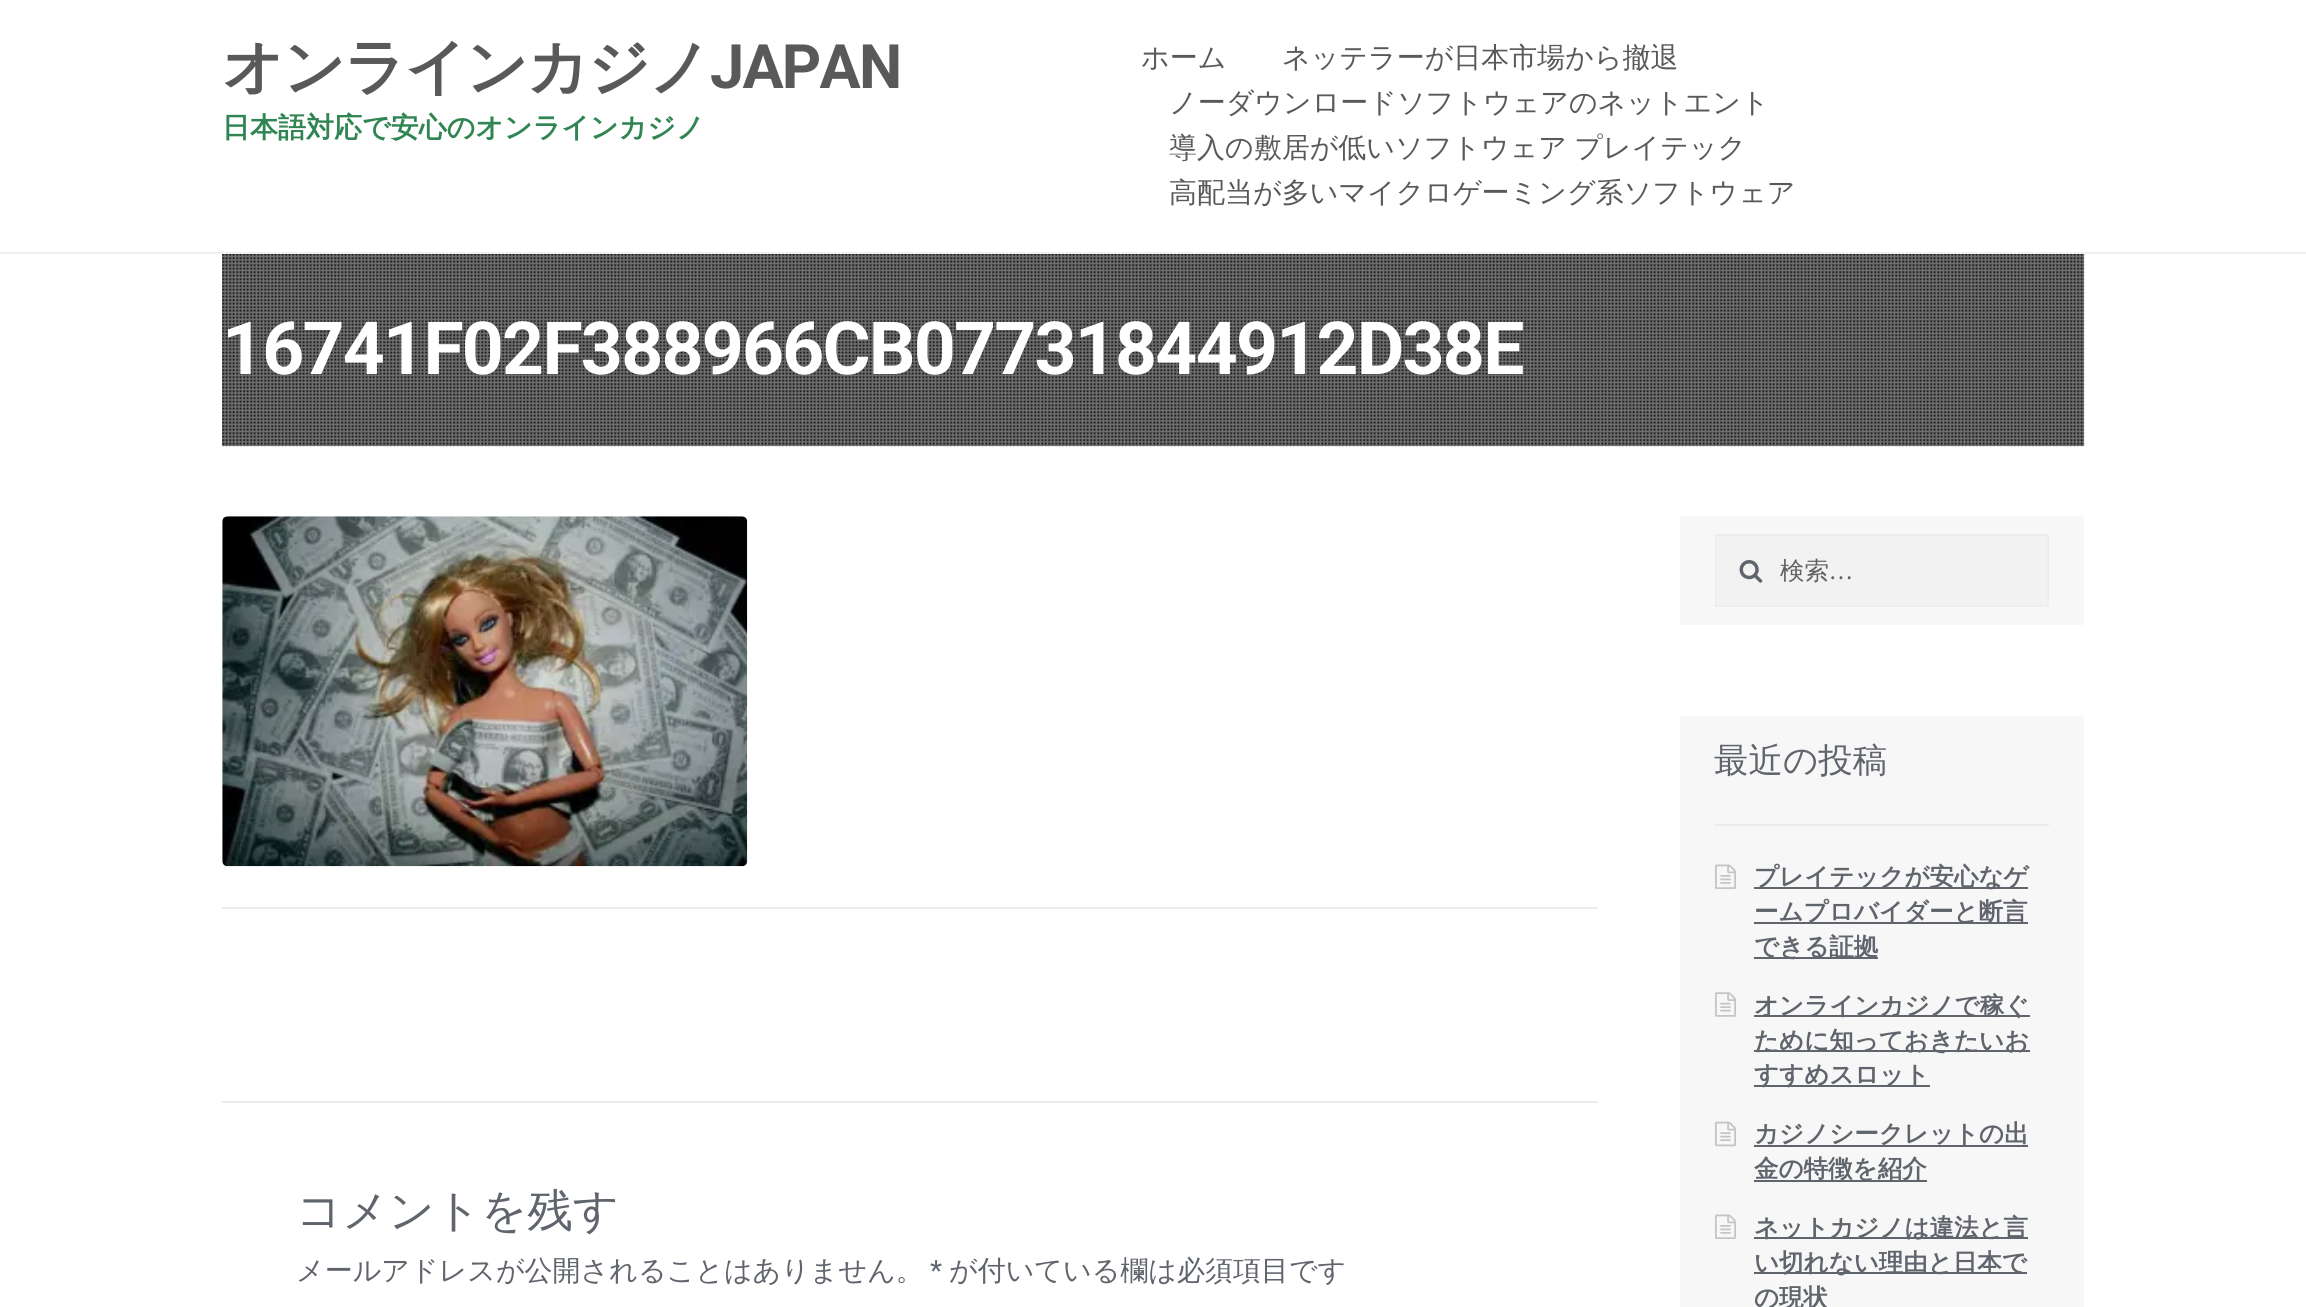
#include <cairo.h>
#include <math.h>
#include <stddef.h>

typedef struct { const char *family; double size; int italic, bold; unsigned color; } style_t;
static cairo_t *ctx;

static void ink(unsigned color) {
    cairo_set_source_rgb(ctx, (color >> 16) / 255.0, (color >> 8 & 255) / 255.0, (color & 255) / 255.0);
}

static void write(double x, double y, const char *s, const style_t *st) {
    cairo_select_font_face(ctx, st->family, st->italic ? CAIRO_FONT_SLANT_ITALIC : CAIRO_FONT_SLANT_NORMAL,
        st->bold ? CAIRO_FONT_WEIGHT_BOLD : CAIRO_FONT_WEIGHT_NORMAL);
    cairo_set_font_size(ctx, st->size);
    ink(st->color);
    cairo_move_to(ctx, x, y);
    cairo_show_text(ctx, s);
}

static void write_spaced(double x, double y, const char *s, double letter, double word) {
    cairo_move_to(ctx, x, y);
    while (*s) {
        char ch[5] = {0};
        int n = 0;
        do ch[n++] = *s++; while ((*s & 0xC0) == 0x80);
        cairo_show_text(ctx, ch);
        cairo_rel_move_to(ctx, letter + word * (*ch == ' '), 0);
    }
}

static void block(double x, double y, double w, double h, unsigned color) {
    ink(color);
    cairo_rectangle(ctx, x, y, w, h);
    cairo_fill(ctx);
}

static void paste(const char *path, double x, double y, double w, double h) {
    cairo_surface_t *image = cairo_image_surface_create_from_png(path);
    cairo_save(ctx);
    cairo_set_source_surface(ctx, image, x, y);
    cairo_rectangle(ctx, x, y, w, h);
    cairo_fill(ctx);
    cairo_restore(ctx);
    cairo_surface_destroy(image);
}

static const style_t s1 = {"WenQuanYi Zen Hei", 28, 0, 1, 0x318553};
static const style_t s2 = {"WenQuanYi Zen Hei Medium", 28, 0, 0, 0x595959};
static const style_t s3 = {"WenQuanYi Zen Hei Medium", 45.25, 0, 0, 0x60646c};
static const style_t s4 = {"WenQuanYi Zen Hei Medium", 28, 0, 0, 0x60646c};
static const style_t s5 = {"Roboto", 28, 0, 0, 0x60646c};
static const style_t s6 = {"WenQuanYi Zen Hei Medium", 24.5, 0, 0, 0x616161};
static const style_t s7 = {"Source Sans Pro", 24.5, 0, 0, 0x616161};
static const style_t s8 = {"WenQuanYi Zen Hei Medium", 34.5, 0, 0, 0x60646c};
static const style_t s9 = {"WenQuanYi Zen Hei", 24.5, 0, 1, 0x60646c};

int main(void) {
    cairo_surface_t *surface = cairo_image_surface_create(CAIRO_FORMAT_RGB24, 2306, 1307);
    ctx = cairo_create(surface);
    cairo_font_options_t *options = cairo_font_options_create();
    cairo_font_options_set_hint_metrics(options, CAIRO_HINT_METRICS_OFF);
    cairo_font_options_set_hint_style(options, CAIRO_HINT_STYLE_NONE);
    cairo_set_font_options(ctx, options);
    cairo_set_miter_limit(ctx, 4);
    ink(0xffffff);
    cairo_paint(ctx);
    block(0, 252, 2306, 2, 0xf0f0f0);
    cairo_select_font_face(ctx, "WenQuanYi Zen Hei", CAIRO_FONT_SLANT_NORMAL, CAIRO_FONT_WEIGHT_BOLD);
    cairo_set_font_size(ctx, 61.25);
    ink(0x595959);
    write_spaced(222, 88, "オンラインカジノ", -1.75, 0);
    cairo_select_font_face(ctx, "Roboto", CAIRO_FONT_SLANT_NORMAL, CAIRO_FONT_WEIGHT_BOLD);
    write_spaced(710, 88, "JAPAN", -1.75, 0);
    write(222, 137, "日本語対応で安心のオンラインカジノ", &s1);
    write(1141, 67, "ホーム", &s2);
    write(1282, 67, "ネッテラーが日本市場から撤退", &s2);
    write(1169, 112, "ノーダウンロードソフトウェアのネットエント", &s2);
    write_spaced(1169, 157, "導入の敷居が低いソフトウェア プレイテック", 0, -1);
    write(1169, 202, "高配当が多いマイクロゲーミング系ソフトウェア", &s2);
    block(222, 254, 1862, 192, 0x717171);
    paste("pic1.png", 222, 254, 1863, 193);
    cairo_select_font_face(ctx, "Roboto", CAIRO_FONT_SLANT_NORMAL, CAIRO_FONT_WEIGHT_BOLD);
    cairo_set_font_size(ctx, 73.25);
    ink(0xffffff);
    write_spaced(222, 374, "16741F02F388966CB07731844912D38E", -1.75, 0);
    block(222, 907, 1376, 2, 0xededed);
    paste("pic2.png", 222, 516, 526, 351);
    block(222, 1101, 1376, 2, 0xededed);
    write(296, 1226, "コメントを残す", &s3);
    write(296, 1280, "メールアドレスが公開されることはありません。", &s4);
    write(930, 1280, "*", &s5);
    write(949, 1280, "が付いている欄は必須項目です", &s4);
    block(1680, 516, 404, 109, 0xf7f7f7);
    ink(0xf2f2f2);
    cairo_rectangle(ctx, 1716, 535, 332, 71);
    cairo_fill_preserve(ctx);
    ink(0xededed);
    cairo_stroke(ctx);
    paste("pic3.png", 1739, 560, 24, 23);
    write(1780, 579, "検索", &s6);
    write(1829, 579, "…", &s7);
    block(1680, 716, 404, 591, 0xf7f7f7);
    block(1715, 824, 334, 2, 0xebebeb);
    write(1714, 772, "最近の投稿", &s8);
    paste("pic4.png", 1715, 864, 21, 25);
    block(1754, 887, 274, 2, 0x60646c);
    write(1754, 885, "プレイテックが安心なゲ", &s9);
    block(1754, 922, 274, 2, 0x60646c);
    write(1754, 920, "ームプロバイダーと断言", &s9);
    block(1754, 957, 124, 2, 0x60646c);
    write(1754, 955, "できる証拠", &s9);
    paste("pic5.png", 1715, 992, 21, 25);
    block(1754, 1015, 276, 2, 0x60646c);
    write(1754, 1014, "オンラインカジノで稼ぐ", &s9);
    block(1754, 1050, 276, 2, 0x60646c);
    write(1754, 1049, "ために知っておきたいお", &s9);
    block(1754, 1085, 176, 2, 0x60646c);
    write(1754, 1083, "すすめスロット", &s9);
    paste("pic6.png", 1715, 1121, 21, 26);
    block(1754, 1145, 274, 2, 0x60646c);
    write(1754, 1142, "カジノシークレットの出", &s9);
    block(1754, 1180, 173, 2, 0x60646c);
    write(1754, 1177, "金の特徴を紹介", &s9);
    paste("pic4.png", 1715, 1214, 21, 25);
    block(1754, 1237, 274, 2, 0x60646c);
    write(1754, 1236, "ネットカジノは違法と言", &s9);
    block(1754, 1272, 273, 2, 0x60646c);
    write(1754, 1271, "い切れない理由と日本で", &s9);
    write(1754, 1306, "の現状", &s9);
    cairo_surface_write_to_png(surface, "screenshot.png");
    cairo_font_options_destroy(options);
    cairo_destroy(ctx);
    cairo_surface_destroy(surface);
    return 0;
}
